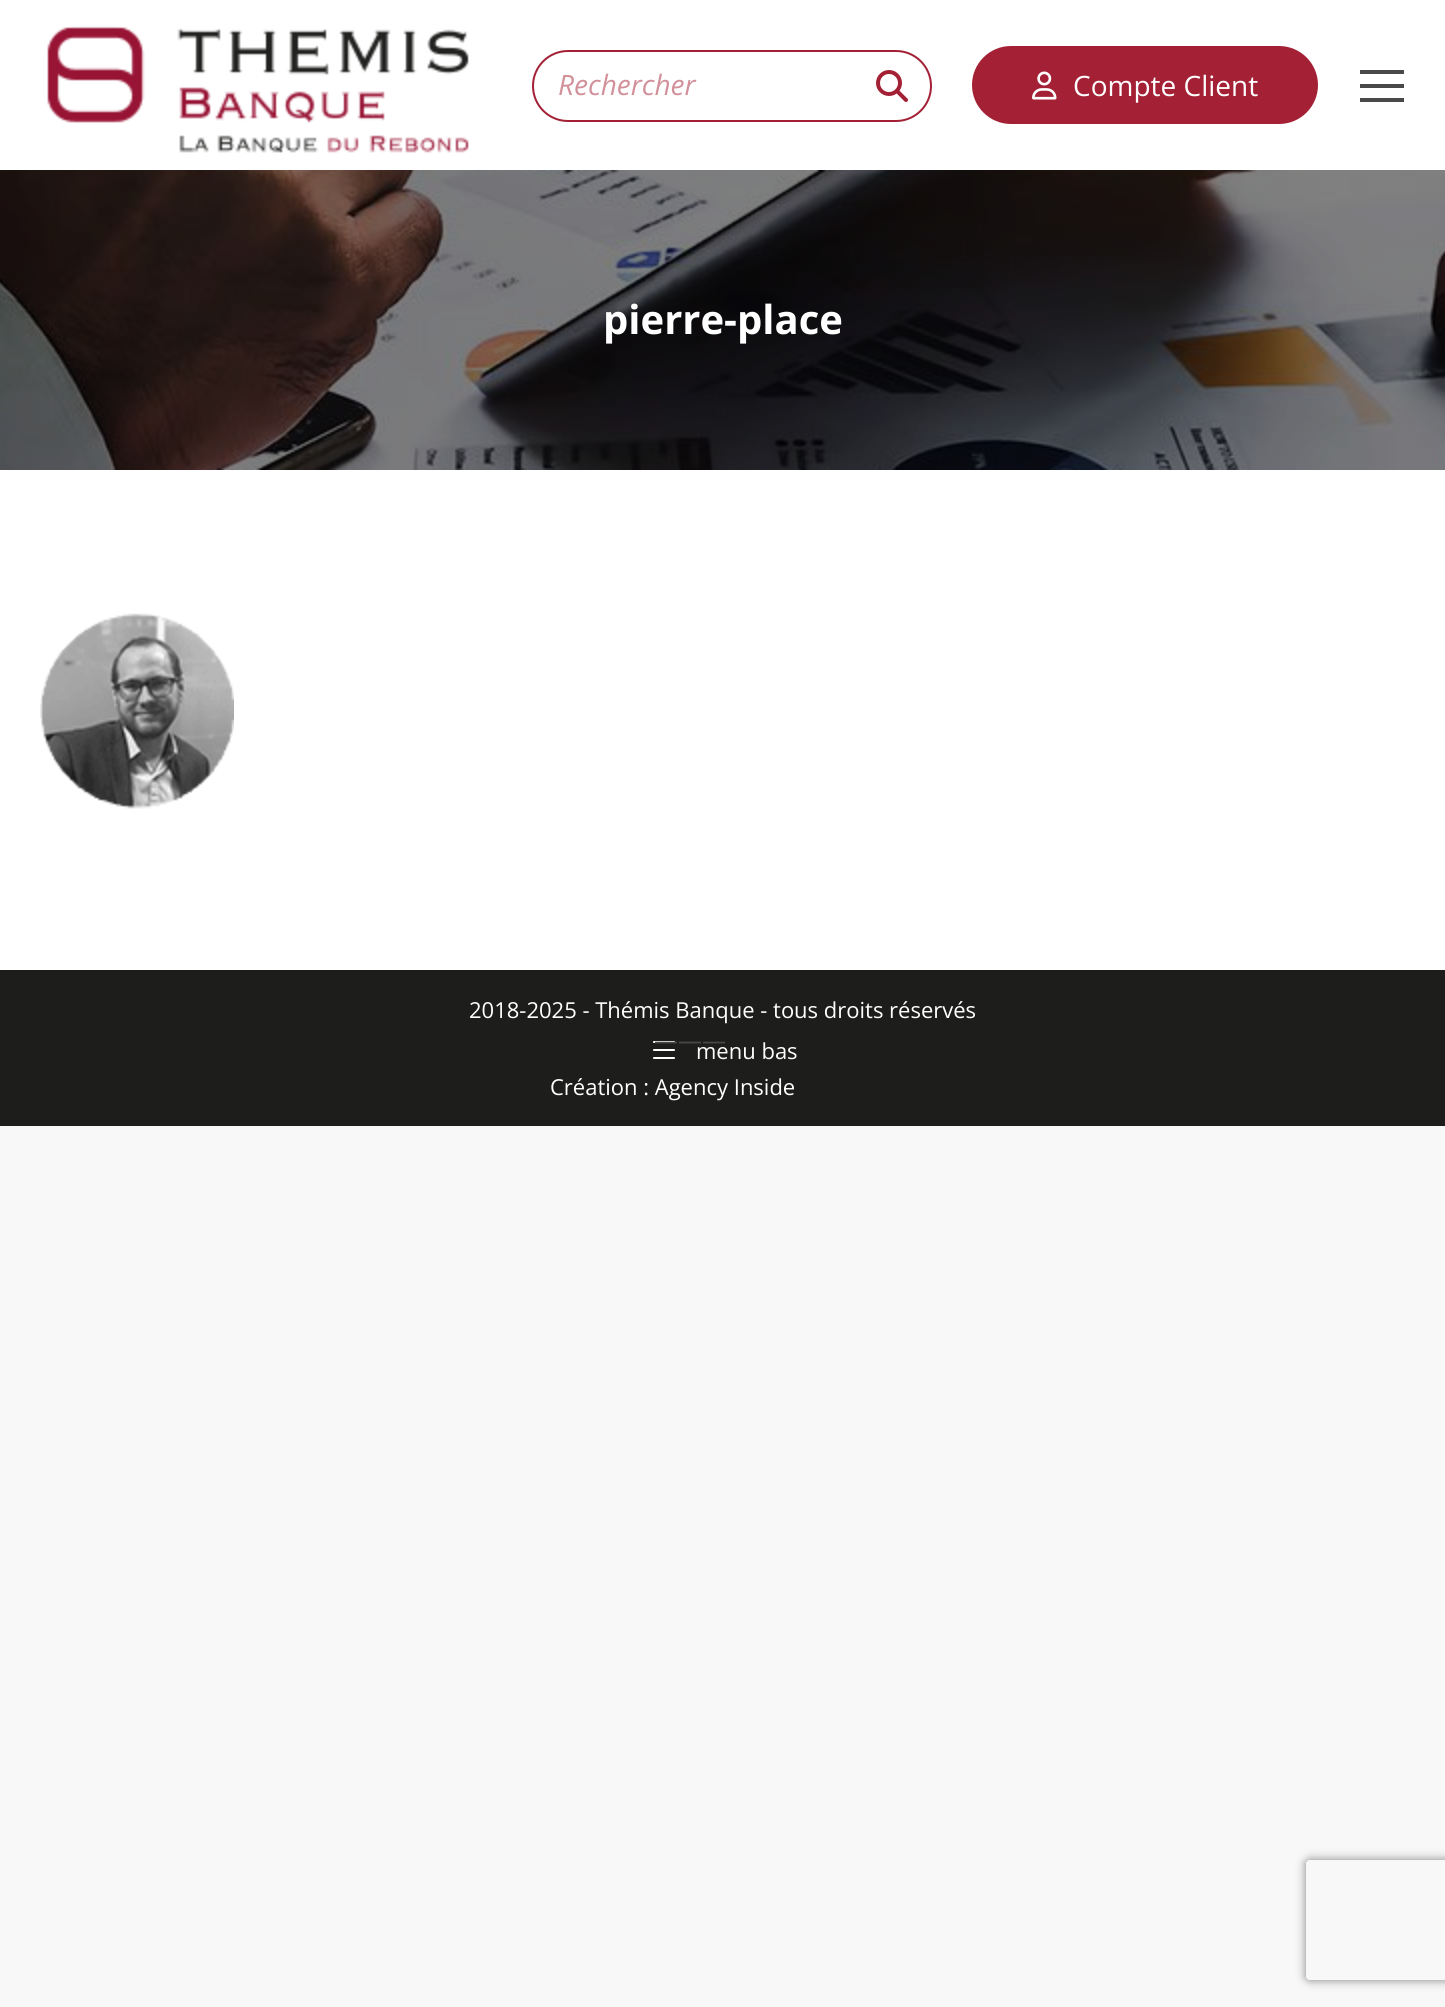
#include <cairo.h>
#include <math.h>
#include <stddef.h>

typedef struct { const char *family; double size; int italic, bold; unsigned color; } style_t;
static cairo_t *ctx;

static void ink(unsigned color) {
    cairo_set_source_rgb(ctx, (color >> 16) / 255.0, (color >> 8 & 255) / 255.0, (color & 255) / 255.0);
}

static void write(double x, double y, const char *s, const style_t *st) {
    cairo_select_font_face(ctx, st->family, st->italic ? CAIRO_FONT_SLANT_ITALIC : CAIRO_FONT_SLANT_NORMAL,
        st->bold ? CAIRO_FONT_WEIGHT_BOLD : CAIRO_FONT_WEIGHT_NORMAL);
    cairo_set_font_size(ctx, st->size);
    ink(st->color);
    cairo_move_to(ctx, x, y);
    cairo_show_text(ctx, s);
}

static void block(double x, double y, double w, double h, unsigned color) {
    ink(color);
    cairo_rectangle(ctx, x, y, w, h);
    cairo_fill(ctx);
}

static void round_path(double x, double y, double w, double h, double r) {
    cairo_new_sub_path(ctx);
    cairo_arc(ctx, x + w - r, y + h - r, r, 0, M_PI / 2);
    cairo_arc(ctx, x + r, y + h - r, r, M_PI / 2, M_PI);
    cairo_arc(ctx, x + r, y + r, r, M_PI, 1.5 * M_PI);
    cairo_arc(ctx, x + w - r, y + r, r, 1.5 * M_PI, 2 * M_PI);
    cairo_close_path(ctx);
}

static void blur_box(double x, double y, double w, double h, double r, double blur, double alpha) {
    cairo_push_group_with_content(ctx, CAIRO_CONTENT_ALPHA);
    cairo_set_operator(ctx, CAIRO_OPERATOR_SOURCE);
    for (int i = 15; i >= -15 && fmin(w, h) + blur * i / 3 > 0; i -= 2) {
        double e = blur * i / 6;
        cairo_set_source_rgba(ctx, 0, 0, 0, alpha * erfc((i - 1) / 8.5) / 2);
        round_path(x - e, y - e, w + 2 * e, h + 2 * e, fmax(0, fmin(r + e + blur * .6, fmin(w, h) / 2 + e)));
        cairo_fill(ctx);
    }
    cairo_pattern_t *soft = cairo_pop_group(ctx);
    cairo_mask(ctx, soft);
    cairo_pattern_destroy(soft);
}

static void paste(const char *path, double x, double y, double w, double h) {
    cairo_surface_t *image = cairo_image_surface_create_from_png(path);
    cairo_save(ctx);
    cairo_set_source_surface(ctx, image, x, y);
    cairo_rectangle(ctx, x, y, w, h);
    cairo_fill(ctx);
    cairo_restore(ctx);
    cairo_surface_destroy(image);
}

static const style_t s1 = {"Open Sans", 28, 1, 0, 0xd1909a};
static const style_t s2 = {"Open Sans", 28, 0, 0, 0xffffff};
static const style_t s3 = {"Open Sans", 40, 0, 1, 0xffffff};
static const style_t s4 = {"Open Sans", 22, 0, 0, 0xffffff};
static const style_t s5 = {"Open Sans", 24, 0, 0, 0x484847};

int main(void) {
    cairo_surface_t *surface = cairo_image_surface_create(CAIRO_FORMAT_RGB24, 1445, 2007);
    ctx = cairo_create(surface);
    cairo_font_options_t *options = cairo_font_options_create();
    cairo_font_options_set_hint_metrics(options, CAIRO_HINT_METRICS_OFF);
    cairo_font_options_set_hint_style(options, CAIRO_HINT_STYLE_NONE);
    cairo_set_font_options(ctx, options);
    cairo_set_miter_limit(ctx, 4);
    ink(0xf8f8f9);
    cairo_paint(ctx);
    block(0, 0, 1445, 970, 0xffffff);
    paste("pic1.png", 47, 26, 422, 127);
    round_path(533, 51, 398, 70, 35);
    ink(0xa32035);
    cairo_stroke(ctx);
    write(558, 95, "Rechercher", &s1);
    paste("pic2.png", 876, 70, 32, 32);
    ink(0xa32035);
    round_path(972, 46, 346, 78, 39);
    cairo_fill(ctx);
    paste("pic3.png", 1032, 71, 25, 29);
    write(1073, 96, "Compte Client", &s2);
    block(1360, 70, 44, 4, 0x494949);
    block(1360, 84, 44, 4, 0x494949);
    block(1360, 98, 44, 4, 0x494949);
    paste("pic4.png", 0, 170, 1445, 300);
    write(603, 334, "pierre-place", &s3);
    paste("pic5.png", 40, 613, 194, 196);
    block(0, 970, 1445, 156, 0x1d1d1b);
    write(469, 1018, "2018-2025 - Thémis Banque - tous droits réservés", &s4);
    paste("pic6.png", 653, 1041, 22, 18);
    write(696, 1059, "menu bas", &s4);
    write(654, 1049, "———", &s5);
    write(550, 1095, "Création : Agency Inside", &s4);
    cairo_save(ctx);
    cairo_set_fill_rule(ctx, CAIRO_FILL_RULE_EVEN_ODD);
    cairo_new_path(ctx);
    cairo_move_to(ctx, 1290, 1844);
    cairo_line_to(ctx, 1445, 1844);
    cairo_line_to(ctx, 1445, 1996);
    cairo_line_to(ctx, 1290, 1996);
    cairo_close_path(ctx);
    cairo_move_to(ctx, 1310, 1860);
    cairo_line_to(ctx, 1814, 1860);
    cairo_curve_to(ctx, 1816, 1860, 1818, 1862, 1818, 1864);
    cairo_line_to(ctx, 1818, 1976);
    cairo_curve_to(ctx, 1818, 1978, 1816, 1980, 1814, 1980);
    cairo_line_to(ctx, 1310, 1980);
    cairo_curve_to(ctx, 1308, 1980, 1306, 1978, 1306, 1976);
    cairo_line_to(ctx, 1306, 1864);
    cairo_curve_to(ctx, 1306, 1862, 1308, 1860, 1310, 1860);
    cairo_close_path(ctx);
    cairo_clip(ctx);
    ink(0x808080);
    blur_box(1306, 1860, 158, 120, 4, 5, 1);
    cairo_restore(ctx);
    cairo_surface_write_to_png(surface, "screenshot.png");
    cairo_font_options_destroy(options);
    cairo_destroy(ctx);
    cairo_surface_destroy(surface);
    return 0;
}
